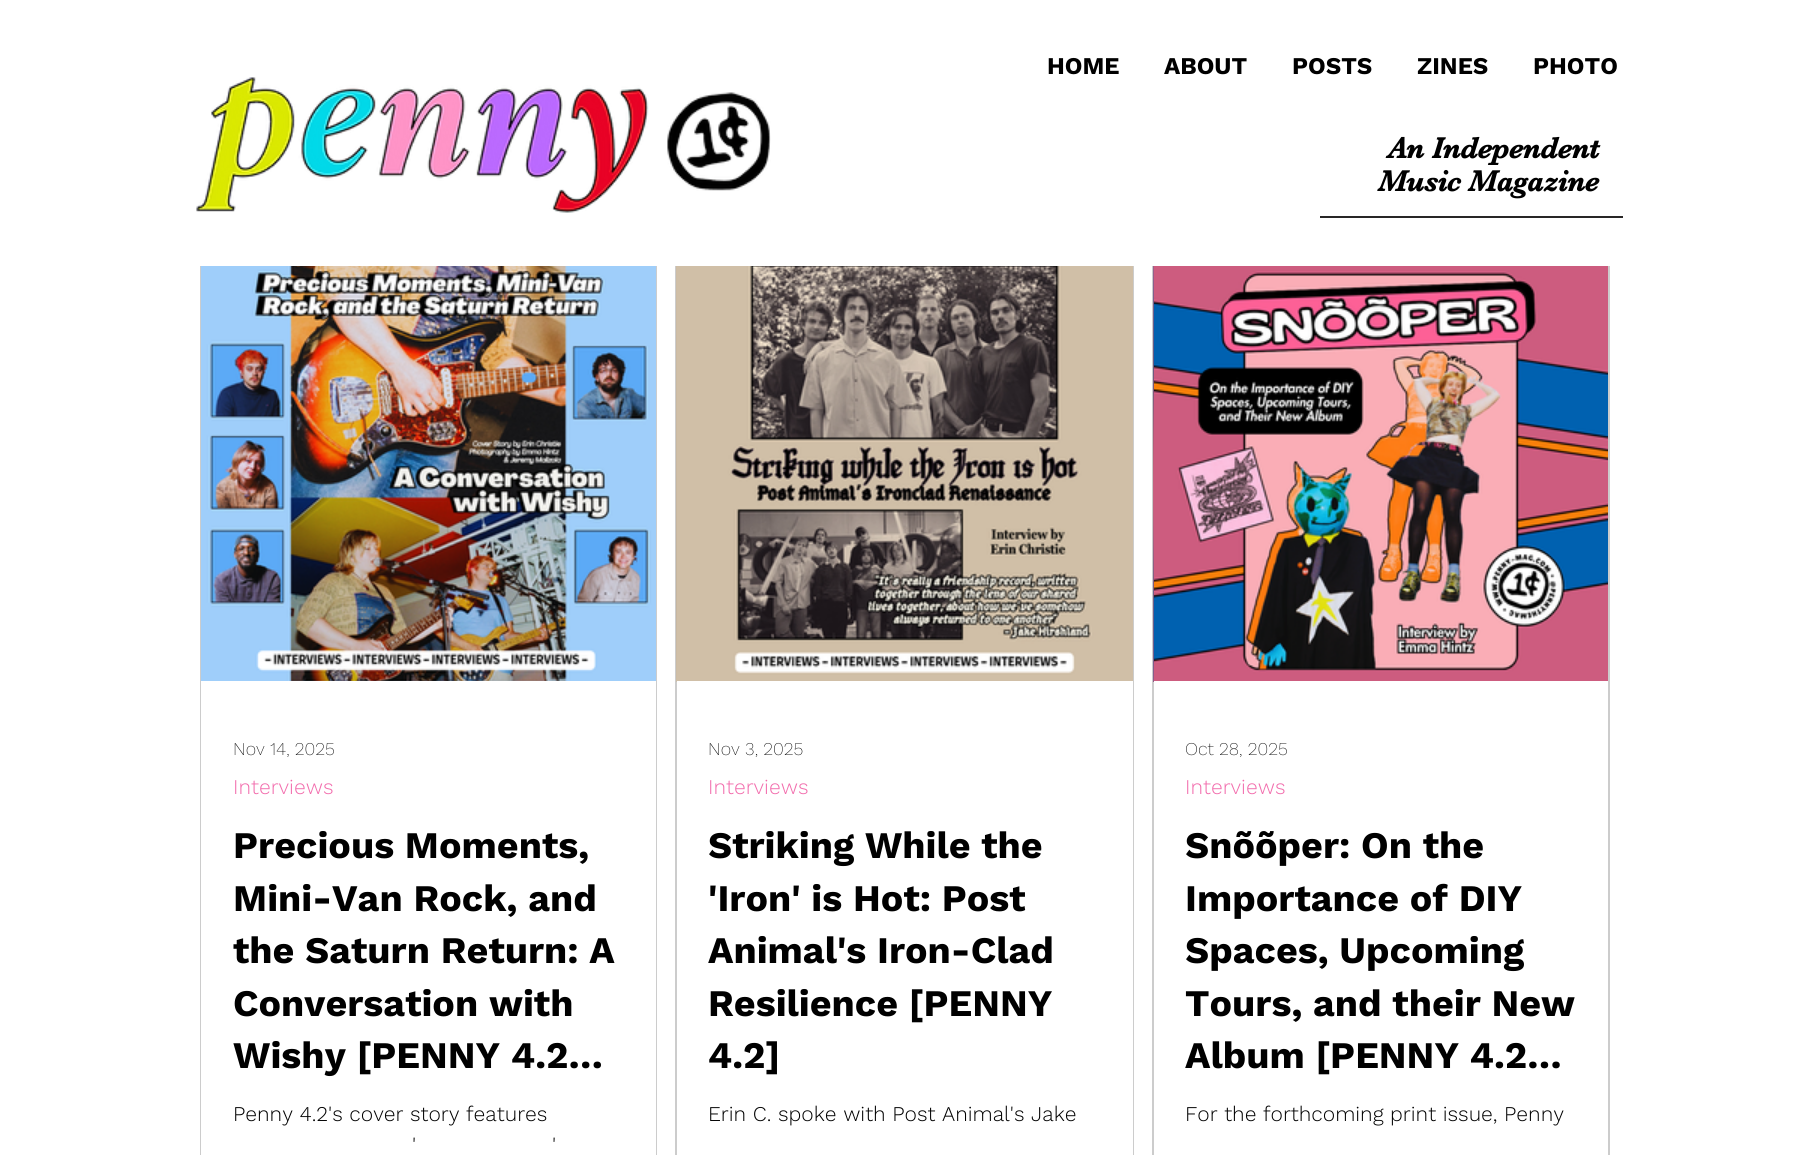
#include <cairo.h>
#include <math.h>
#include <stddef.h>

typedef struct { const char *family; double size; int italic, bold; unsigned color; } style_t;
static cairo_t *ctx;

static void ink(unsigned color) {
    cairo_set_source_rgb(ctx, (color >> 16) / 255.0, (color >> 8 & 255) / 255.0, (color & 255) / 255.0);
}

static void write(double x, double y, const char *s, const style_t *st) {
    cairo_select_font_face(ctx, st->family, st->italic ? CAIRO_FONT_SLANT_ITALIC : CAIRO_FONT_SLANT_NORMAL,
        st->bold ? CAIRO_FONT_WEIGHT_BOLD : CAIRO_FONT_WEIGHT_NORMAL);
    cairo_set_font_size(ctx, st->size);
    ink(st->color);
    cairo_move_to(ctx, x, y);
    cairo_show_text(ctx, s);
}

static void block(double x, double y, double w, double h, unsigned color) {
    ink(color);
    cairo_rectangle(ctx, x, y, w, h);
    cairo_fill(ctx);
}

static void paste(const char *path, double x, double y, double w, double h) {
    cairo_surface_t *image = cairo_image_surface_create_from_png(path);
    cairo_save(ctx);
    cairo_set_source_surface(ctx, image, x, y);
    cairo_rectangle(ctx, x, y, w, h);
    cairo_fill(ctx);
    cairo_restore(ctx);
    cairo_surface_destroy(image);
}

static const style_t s1 = {"Work Sans", 24, 0, 1, 0x000000};
static const style_t s2 = {"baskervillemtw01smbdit", 30, 0, 1, 0x000000};
static const style_t s3 = {"Work Sans ExtraLight", 18, 0, 0, 0x000000};
static const style_t s4 = {"Work Sans Light", 21, 0, 0, 0xf26bac};
static const style_t s5 = {"Work Sans", 37.5, 0, 1, 0x000000};
static const style_t s6 = {"Work Sans Light", 21, 0, 0, 0x000000};

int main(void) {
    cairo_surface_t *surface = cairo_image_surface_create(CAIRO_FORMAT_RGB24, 1805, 1155);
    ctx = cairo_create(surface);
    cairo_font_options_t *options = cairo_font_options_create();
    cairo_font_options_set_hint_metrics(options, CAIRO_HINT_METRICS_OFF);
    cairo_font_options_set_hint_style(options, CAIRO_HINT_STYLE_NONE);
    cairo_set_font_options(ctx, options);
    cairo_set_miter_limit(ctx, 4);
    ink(0xffffff);
    cairo_paint(ctx);
    write(1047, 74, "HOME", &s1);
    write(1164, 74, "ABOUT", &s1);
    write(1292, 74, "POSTS", &s1);
    write(1417, 74, "ZINES", &s1);
    write(1533, 74, "PHOTO", &s1);
    paste("pic1.png", 196, 77, 453, 136);
    paste("pic2.png", 667, 92, 104, 99);
    write(1388, 158, "An Independent", &s2);
    write(1378, 191, "Music Magazine", &s2);
    block(1320, 216, 303, 2, 0x282626);
    cairo_rectangle(ctx, 201, 226, 455, 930);
    ink(0xcccccc);
    cairo_stroke(ctx);
    cairo_rectangle(ctx, 676, 226, 457, 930);
    cairo_stroke(ctx);
    cairo_rectangle(ctx, 1153, 226, 456, 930);
    cairo_stroke(ctx);
    block(200, 225, 1410, 41, 0xffffff);
    paste("pic3.png", 201, 266, 455, 415);
    block(201, 681, 455, 474, 0xffffff);
    write(233, 755, "Nov 14, 2025", &s3);
    write(233, 794, "Interviews", &s4);
    write(233, 858, "Precious Moments,", &s5);
    write(233, 911, "Mini-Van Rock, and", &s5);
    write(233, 963, "the Saturn Return: A", &s5);
    write(233, 1016, "Conversation with", &s5);
    write(233, 1068, "Wishy [PENNY 4.2…", &s5);
    write(233, 1121, "Penny 4.2's cover story features", &s6);
    write(412, 1152, "'", &s6);
    write(552, 1152, "'", &s6);
    paste("pic4.png", 676, 266, 1, 416);
    paste("pic5.png", 677, 266, 456, 415);
    block(1132, 681, 1, 474, 0xffffff);
    write(708, 755, "Nov 3, 2025", &s3);
    write(708, 794, "Interviews", &s4);
    write(708, 858, "Striking While the", &s5);
    write(708, 911, "'Iron' is Hot: Post", &s5);
    write(708, 963, "Animal's Iron-Clad", &s5);
    write(708, 1016, "Resilience [PENNY", &s5);
    write(708, 1068, "4.2]", &s5);
    write(708, 1121, "Erin C. spoke with Post Animal's Jake", &s6);
    paste("pic6.png", 1153, 266, 1, 416);
    paste("pic7.png", 1154, 266, 454, 415);
    write(1185, 755, "Oct 28, 2025", &s3);
    write(1185, 794, "Interviews", &s4);
    write(1185, 858, "Snõõper: On the", &s5);
    write(1185, 911, "Importance of DIY", &s5);
    write(1185, 963, "Spaces, Upcoming", &s5);
    write(1185, 1016, "Tours, and their New", &s5);
    write(1185, 1068, "Album [PENNY 4.2…", &s5);
    write(1185, 1121, "For the forthcoming print issue, Penny", &s6);
    cairo_surface_write_to_png(surface, "screenshot.png");
    cairo_font_options_destroy(options);
    cairo_destroy(ctx);
    cairo_surface_destroy(surface);
    return 0;
}
